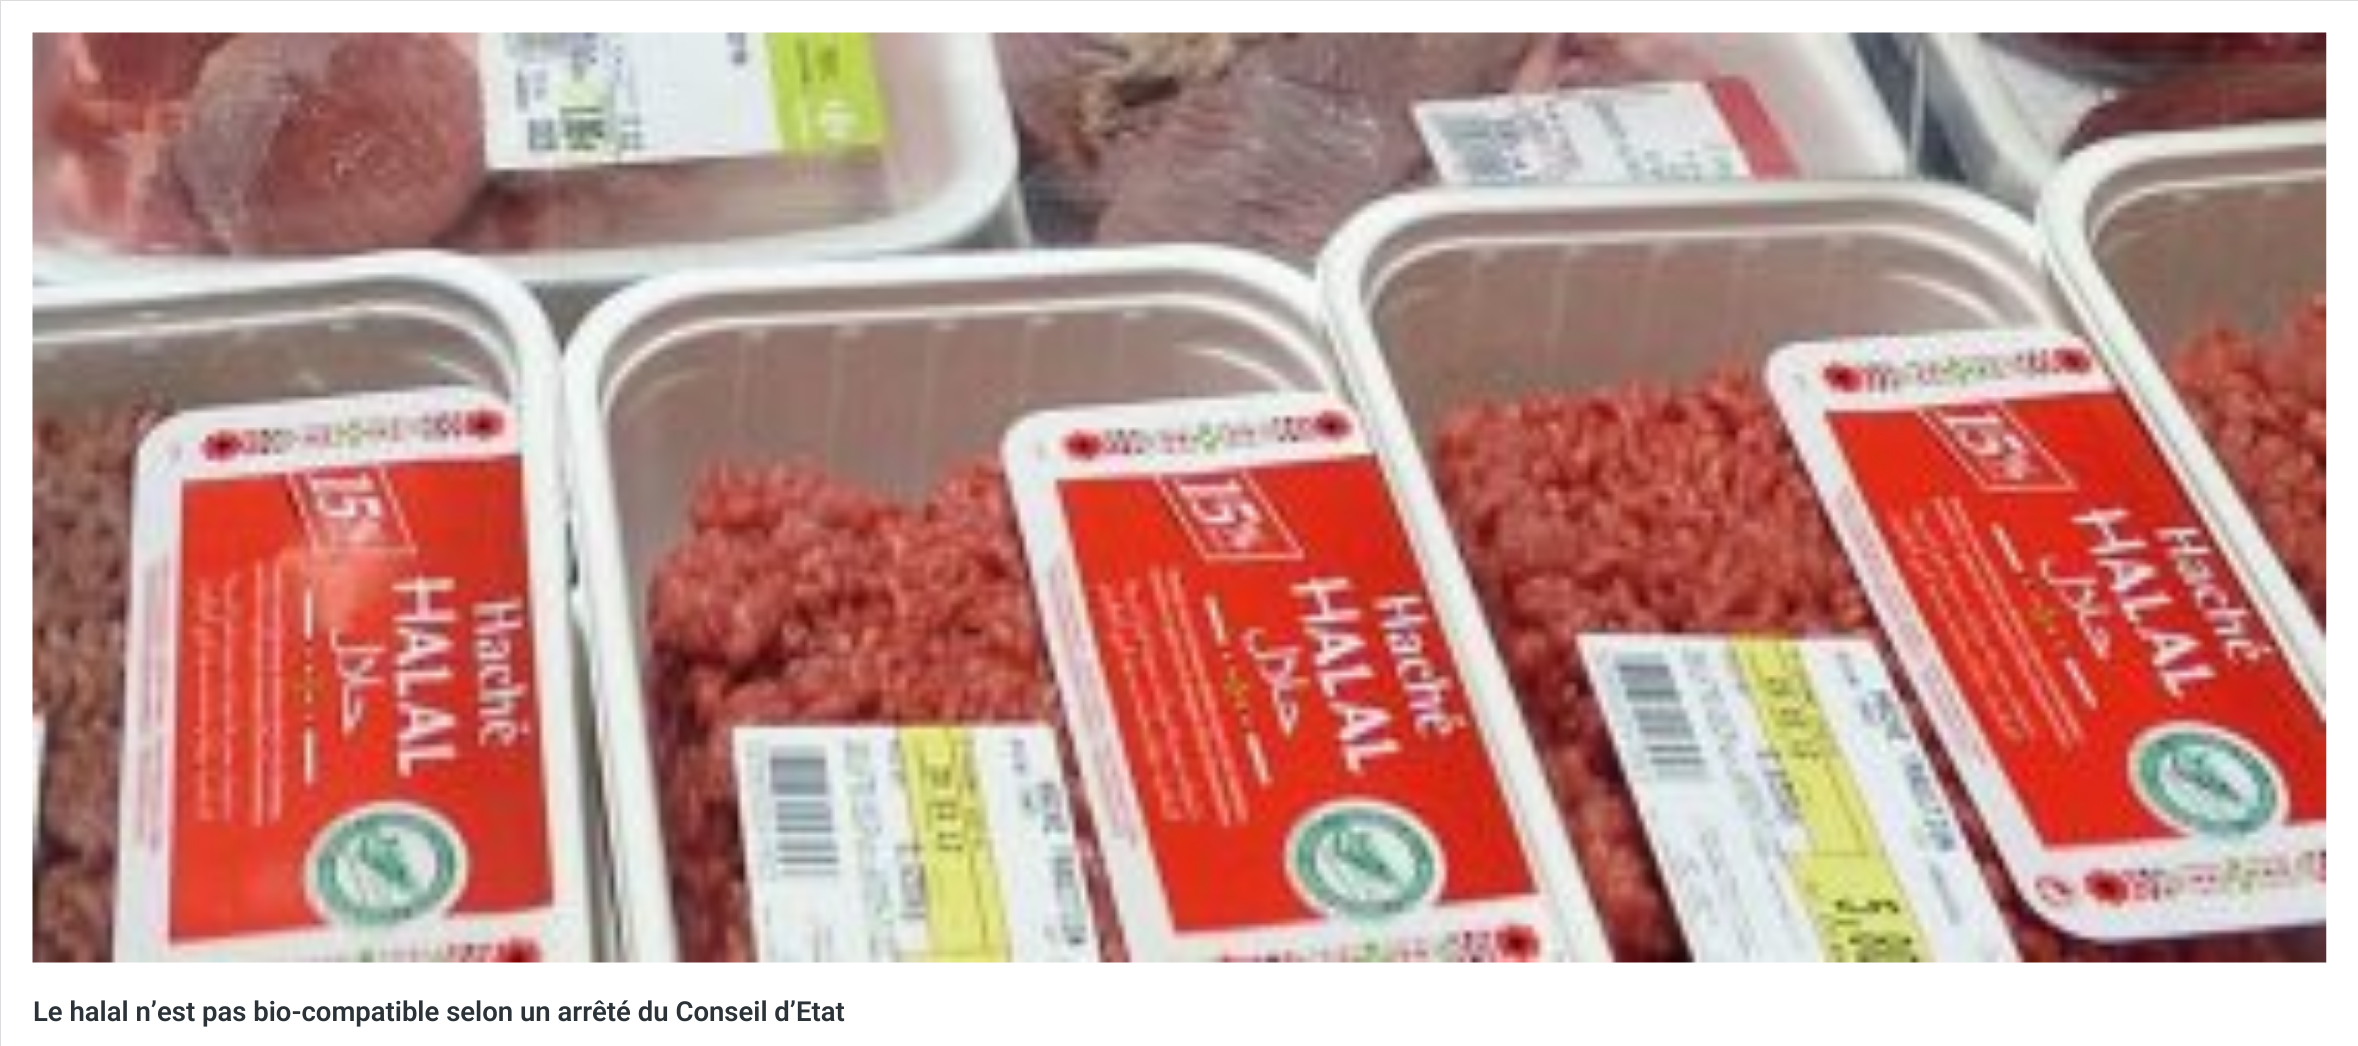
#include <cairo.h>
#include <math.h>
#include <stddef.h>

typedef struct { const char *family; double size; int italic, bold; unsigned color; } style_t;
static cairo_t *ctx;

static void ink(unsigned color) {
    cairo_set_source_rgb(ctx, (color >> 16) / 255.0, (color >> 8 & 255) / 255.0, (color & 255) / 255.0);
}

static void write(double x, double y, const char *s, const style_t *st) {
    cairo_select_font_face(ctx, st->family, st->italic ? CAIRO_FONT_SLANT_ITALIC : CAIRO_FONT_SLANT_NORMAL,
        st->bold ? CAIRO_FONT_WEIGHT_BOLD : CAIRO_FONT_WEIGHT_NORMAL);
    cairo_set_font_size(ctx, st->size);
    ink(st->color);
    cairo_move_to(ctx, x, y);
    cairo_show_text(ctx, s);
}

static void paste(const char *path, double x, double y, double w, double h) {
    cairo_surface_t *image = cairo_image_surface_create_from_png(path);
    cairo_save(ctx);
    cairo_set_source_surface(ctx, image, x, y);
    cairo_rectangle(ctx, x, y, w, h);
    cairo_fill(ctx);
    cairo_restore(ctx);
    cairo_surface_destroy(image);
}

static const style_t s1 = {"Roboto SemiBold", 27.5, 0, 0, 0x2c3338};

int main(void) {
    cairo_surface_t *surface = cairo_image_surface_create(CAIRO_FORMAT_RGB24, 2358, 1046);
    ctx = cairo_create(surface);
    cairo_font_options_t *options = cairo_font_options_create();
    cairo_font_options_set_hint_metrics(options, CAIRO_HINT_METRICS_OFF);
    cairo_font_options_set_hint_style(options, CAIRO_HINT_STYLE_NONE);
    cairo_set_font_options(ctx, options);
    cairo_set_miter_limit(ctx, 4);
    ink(0xffffff);
    cairo_paint(ctx);
    cairo_rectangle(ctx, 0.5, 0.5, 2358, 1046);
    ink(0xdcdcde);
    cairo_set_line_width(ctx, 1);
    cairo_stroke(ctx);
    paste("pic1.png", 32, 32, 2295, 931);
    write(33, 1021, "Le halal n’est pas bio-compatible selon un arrêté du Conseil d’Etat", &s1);
    cairo_surface_write_to_png(surface, "screenshot.png");
    cairo_font_options_destroy(options);
    cairo_destroy(ctx);
    cairo_surface_destroy(surface);
    return 0;
}
